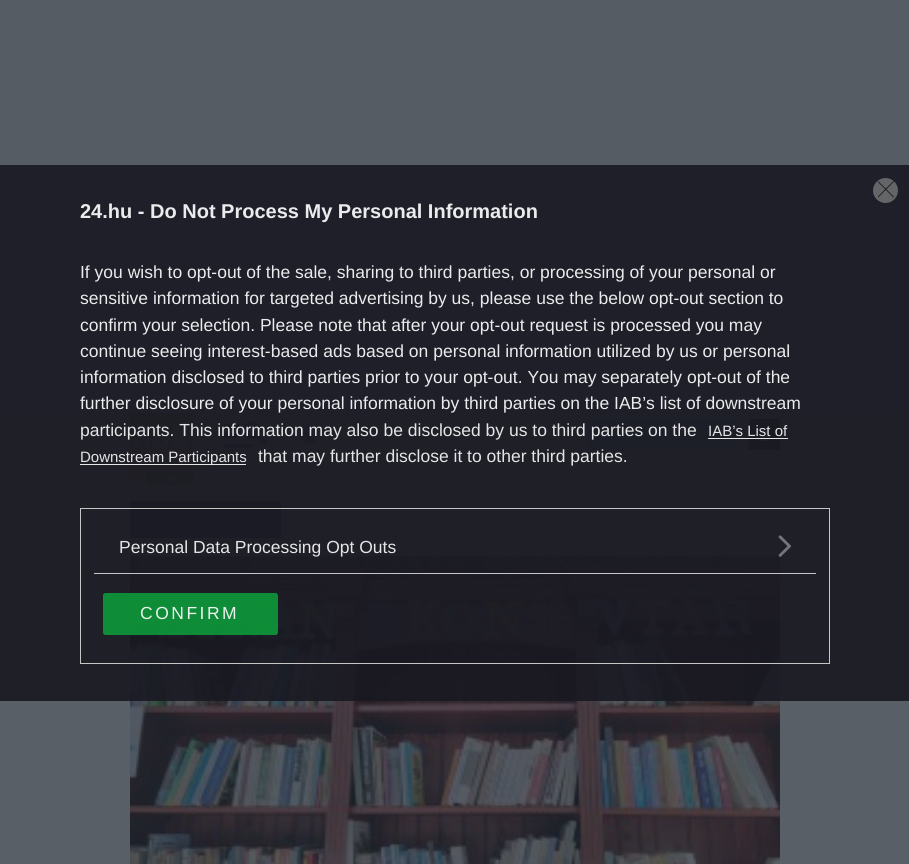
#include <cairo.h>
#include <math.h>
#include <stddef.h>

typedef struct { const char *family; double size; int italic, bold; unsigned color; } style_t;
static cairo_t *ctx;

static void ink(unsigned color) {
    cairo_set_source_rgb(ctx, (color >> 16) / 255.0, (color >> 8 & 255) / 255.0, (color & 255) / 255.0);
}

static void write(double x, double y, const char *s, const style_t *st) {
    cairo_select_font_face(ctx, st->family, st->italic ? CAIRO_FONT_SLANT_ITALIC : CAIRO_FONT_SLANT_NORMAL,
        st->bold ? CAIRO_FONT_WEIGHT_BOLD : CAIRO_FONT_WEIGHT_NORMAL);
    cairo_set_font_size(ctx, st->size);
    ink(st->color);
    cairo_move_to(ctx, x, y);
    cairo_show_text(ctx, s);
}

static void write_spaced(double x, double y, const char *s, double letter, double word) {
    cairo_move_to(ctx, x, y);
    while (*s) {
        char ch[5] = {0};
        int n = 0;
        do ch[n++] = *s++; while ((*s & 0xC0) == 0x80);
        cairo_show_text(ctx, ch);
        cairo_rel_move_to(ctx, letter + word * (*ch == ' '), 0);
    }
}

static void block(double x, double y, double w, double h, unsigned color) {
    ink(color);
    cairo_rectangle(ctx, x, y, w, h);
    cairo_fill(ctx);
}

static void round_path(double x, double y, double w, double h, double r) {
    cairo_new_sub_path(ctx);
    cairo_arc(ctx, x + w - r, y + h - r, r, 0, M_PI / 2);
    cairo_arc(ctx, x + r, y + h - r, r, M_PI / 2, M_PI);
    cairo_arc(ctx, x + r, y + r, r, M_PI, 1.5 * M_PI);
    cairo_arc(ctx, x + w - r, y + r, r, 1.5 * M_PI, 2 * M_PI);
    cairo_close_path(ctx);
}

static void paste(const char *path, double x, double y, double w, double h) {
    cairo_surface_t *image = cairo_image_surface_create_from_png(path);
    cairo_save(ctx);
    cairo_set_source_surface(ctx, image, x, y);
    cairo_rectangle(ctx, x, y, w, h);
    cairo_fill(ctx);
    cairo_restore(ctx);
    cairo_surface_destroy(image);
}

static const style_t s1 = {"Liberation Sans", 20, 0, 1, 0xeaebec};
static const style_t s2 = {"Liberation Sans", 17.5, 0, 0, 0xeaebec};
static const style_t s3 = {"Liberation Sans", 17.5, 0, 0, 0xe5e5e6};
static const style_t s4 = {"Liberation Sans", 15, 0, 0, 0xe5e5e6};

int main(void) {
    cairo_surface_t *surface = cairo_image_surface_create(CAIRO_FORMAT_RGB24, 909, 864);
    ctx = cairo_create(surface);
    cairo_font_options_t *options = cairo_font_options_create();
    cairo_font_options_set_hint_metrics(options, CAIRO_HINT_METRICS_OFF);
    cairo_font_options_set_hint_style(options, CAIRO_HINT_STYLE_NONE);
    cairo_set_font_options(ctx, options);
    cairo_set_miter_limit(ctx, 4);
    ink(0x595f67);
    cairo_paint(ctx);
    block(0, 0, 909, 413, 0x565c64);
    block(0, 456, 909, 1, 0x515760);
    paste("pic1.png", 130, 413, 63, 72);
    paste("pic2.png", 224, 421, 44, 27);
    paste("pic3.png", 299, 424, 19, 20);
    block(586, 419, 150, 31, 0x4a5865);
    block(749, 419, 31, 31, 0x262c37);
    paste("pic4.png", 759, 429, 10, 12);
    block(130, 500, 650, 1, 0x515760);
    block(130, 501, 151, 37, 0x2a303c);
    paste("pic5.png", 130, 556, 650, 308);
    cairo_set_source_rgba(ctx, 0.098, 0.098, 0.133, 0.9);
    cairo_rectangle(ctx, 0, 165, 909, 536);
    cairo_fill(ctx);
    ink(0x646566);
    cairo_arc(ctx, 885.5, 190.5, 12.5, 0, 2 * M_PI);
    cairo_fill(ctx);
    cairo_save(ctx);
    cairo_rectangle(ctx, 878, 181, 16, 17);
    cairo_clip(ctx);
    cairo_new_path(ctx);
    cairo_move_to(ctx, 878, 181.5);
    cairo_line_to(ctx, 893.5, 197);
    cairo_move_to(ctx, 893.5, 181.5);
    cairo_line_to(ctx, 878, 197);
    ink(0x09090a);
    cairo_set_line_width(ctx, 0.7);
    cairo_set_line_cap(ctx, CAIRO_LINE_CAP_ROUND);
    cairo_set_line_join(ctx, CAIRO_LINE_JOIN_ROUND);
    cairo_stroke(ctx);
    cairo_restore(ctx);
    write(80, 218, "24.hu - Do Not Process My Personal Information", &s1);
    write(80, 278, "If you wish to opt-out of the sale, sharing to third parties, or processing of your personal or", &s2);
    write(80, 304, "sensitive information for targeted advertising by us, please use the below opt-out section to", &s2);
    write(80, 331, "confirm your selection. Please note that after your opt-out request is processed you may", &s2);
    write(80, 357, "continue seeing interest-based ads based on personal information utilized by us or personal", &s2);
    write(80, 383, "information disclosed to third parties prior to your opt-out. You may separately opt-out of the", &s2);
    write(80, 409, "further disclosure of your personal information by third parties on the IAB’s list of downstream", &s2);
    write(80, 436, "participants. This information may also be disclosed by us to third parties on the", &s3);
    write(708, 436, "IAB’s List of", &s4);
    cairo_set_source_rgba(ctx, 0.984, 0.984, 0.984, 0.9);
    cairo_rectangle(ctx, 708, 438, 80, 1);
    cairo_fill(ctx);
    cairo_rectangle(ctx, 80, 464, 166, 1);
    cairo_fill(ctx);
    write(80, 462, "Downstream Participants", &s4);
    write(258, 462, "that may further disclose it to other third parties.", &s3);
    cairo_rectangle(ctx, 80.5, 508.5, 749, 155);
    cairo_set_source_rgba(ctx, 0.847, 0.847, 0.847, 0.9);
    cairo_set_line_width(ctx, 1);
    cairo_stroke(ctx);
    cairo_rectangle(ctx, 94, 573, 722, 1);
    cairo_fill(ctx);
    write(119, 553, "Personal Data Processing Opt Outs", &s3);
    paste("pic6.png", 778, 535, 13, 22);
    cairo_set_source_rgba(ctx, 0.055, 0.596, 0.224, 0.9);
    round_path(103, 593, 175, 42, 2.5);
    cairo_fill(ctx);
    ink(0xe7f3eb);
    write_spaced(140, 619, "CONFIRM", 2.5, 0);
    cairo_surface_write_to_png(surface, "screenshot.png");
    cairo_font_options_destroy(options);
    cairo_destroy(ctx);
    cairo_surface_destroy(surface);
    return 0;
}
